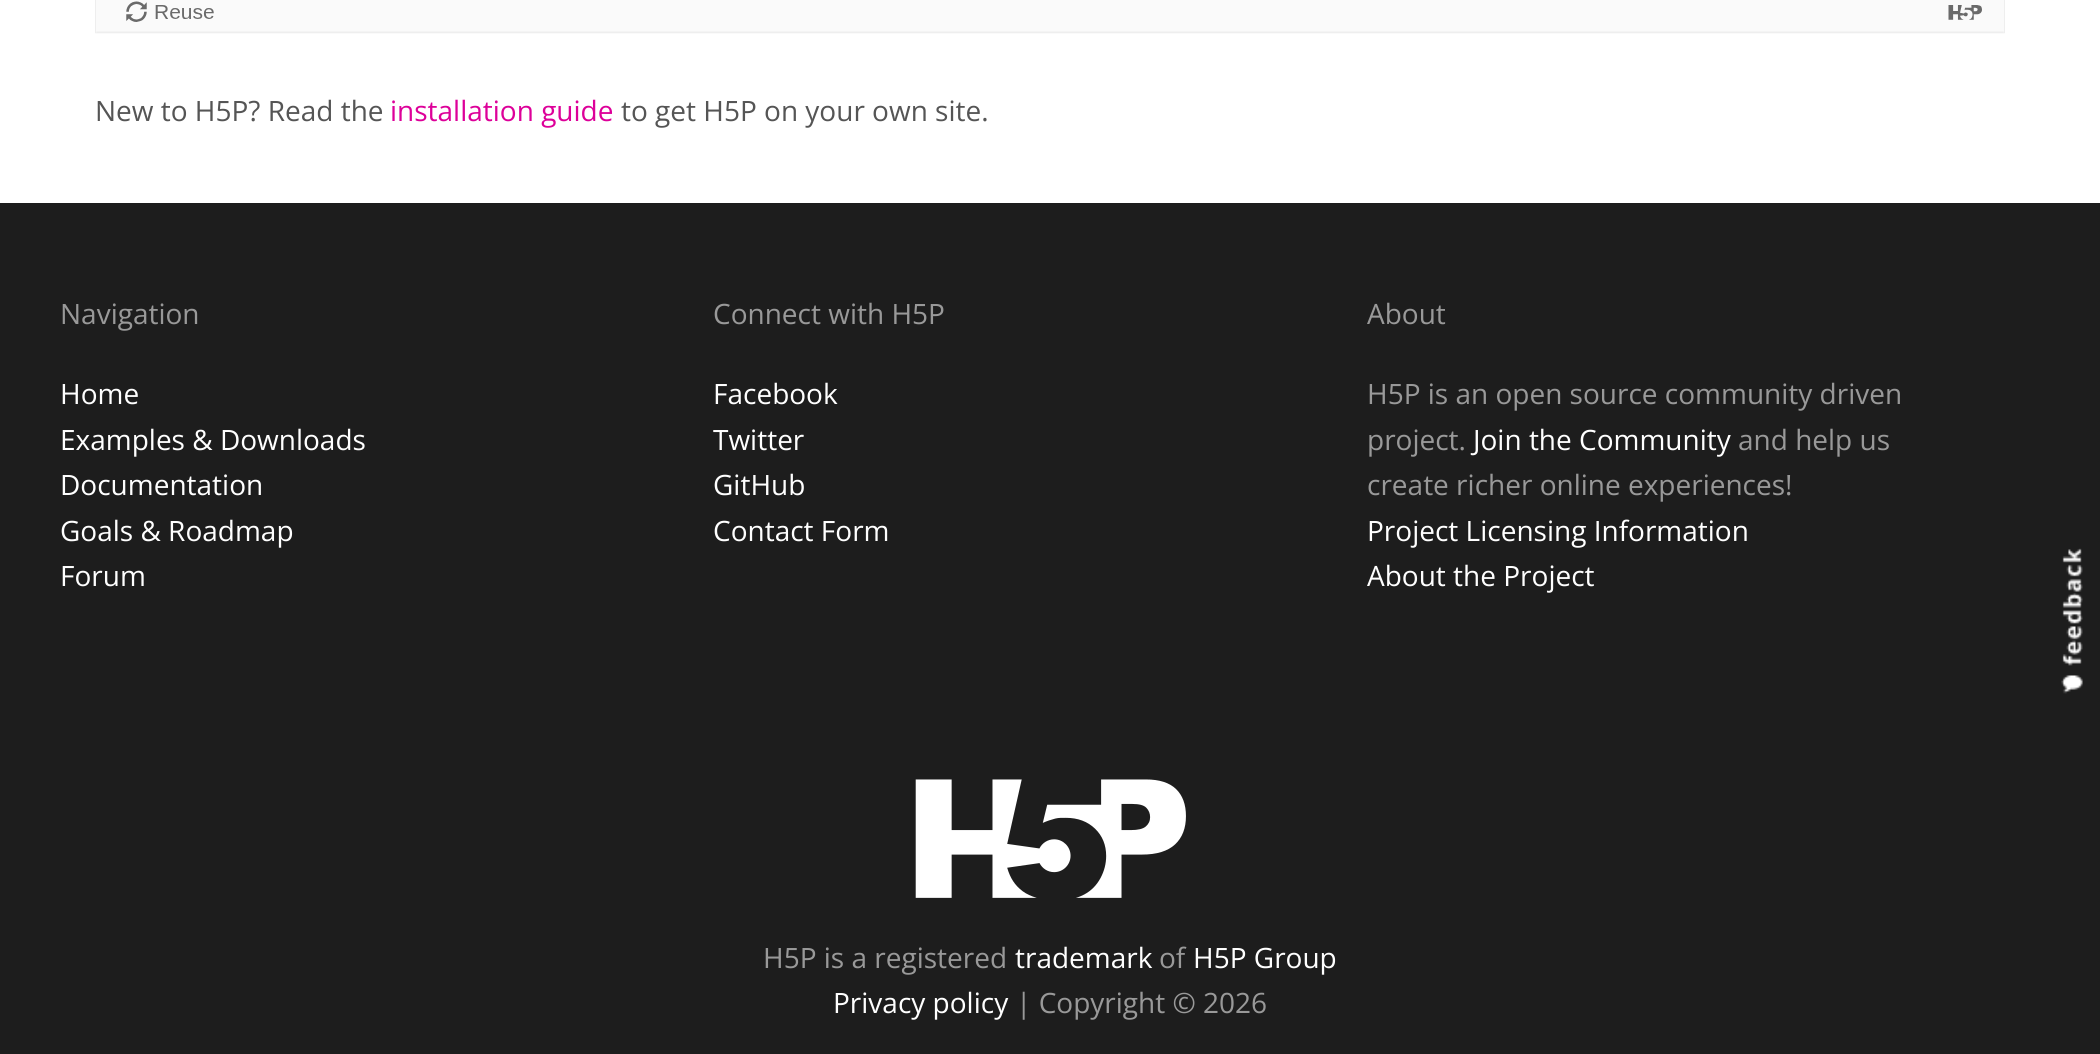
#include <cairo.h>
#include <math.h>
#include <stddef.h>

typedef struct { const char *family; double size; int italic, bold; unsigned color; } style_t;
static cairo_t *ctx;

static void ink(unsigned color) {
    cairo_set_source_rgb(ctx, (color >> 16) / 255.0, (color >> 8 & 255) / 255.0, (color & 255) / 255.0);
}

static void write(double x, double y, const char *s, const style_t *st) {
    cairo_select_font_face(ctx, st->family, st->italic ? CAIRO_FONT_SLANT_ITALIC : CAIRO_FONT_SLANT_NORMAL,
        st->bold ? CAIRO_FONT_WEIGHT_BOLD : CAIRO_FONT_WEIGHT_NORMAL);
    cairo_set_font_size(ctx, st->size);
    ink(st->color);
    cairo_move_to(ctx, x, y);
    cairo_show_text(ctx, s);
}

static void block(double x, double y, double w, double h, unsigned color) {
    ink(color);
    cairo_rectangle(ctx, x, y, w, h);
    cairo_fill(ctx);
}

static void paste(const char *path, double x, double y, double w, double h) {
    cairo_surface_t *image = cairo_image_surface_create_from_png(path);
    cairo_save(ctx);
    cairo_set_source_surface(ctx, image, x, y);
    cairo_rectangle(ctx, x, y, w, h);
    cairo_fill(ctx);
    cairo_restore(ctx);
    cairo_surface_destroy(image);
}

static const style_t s1 = {"Open Sans", 28, 0, 0, 0x555555};
static const style_t s2 = {"Open Sans", 28, 0, 0, 0xdd0099};
static const style_t s3 = {"Open Sans", 28, 0, 0, 0x999999};
static const style_t s4 = {"Open Sans", 28, 0, 0, 0xffffff};

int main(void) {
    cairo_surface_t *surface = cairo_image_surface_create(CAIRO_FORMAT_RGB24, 2100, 1054);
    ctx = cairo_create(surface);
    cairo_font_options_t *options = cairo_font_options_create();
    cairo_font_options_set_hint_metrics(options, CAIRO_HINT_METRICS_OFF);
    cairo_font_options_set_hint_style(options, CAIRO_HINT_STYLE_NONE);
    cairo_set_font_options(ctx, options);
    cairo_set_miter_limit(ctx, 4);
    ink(0xffffff);
    cairo_paint(ctx);
    paste("pic1.png", 95, 0, 1910, 34);
    write(95, 121, "New to H5P? Read the", &s1);
    write(390, 121, "installation guide", &s2);
    write(621, 121, "to get H5P on your own site.", &s1);
    block(0, 203, 2100, 851, 0x1d1d1d);
    write(60, 324, "Navigation", &s3);
    write(60, 404, "Home", &s4);
    write(60, 450, "Examples & Downloads", &s4);
    write(60, 495, "Documentation", &s4);
    write(60, 541, "Goals & Roadmap", &s4);
    write(60, 586, "Forum", &s4);
    write(713, 324, "Connect with H5P", &s3);
    write(713, 404, "Facebook", &s4);
    write(713, 450, "Twitter", &s4);
    write(713, 495, "GitHub", &s4);
    write(713, 541, "Contact Form", &s4);
    write(1367, 324, "About", &s3);
    write(1367, 404, "H5P is an open source community driven", &s3);
    write(1367, 450, "project.", &s3);
    write(1473, 450, "Join the Community", &s4);
    write(1738, 450, "and help us", &s3);
    write(1367, 495, "create richer online experiences!", &s3);
    write(1367, 541, "Project Licensing Information", &s4);
    write(1367, 586, "About the Project", &s4);
    paste("pic2.png", 915, 779, 271, 119);
    write(763, 968, "H5P is a registered", &s3);
    write(1015, 968, "trademark", &s4);
    write(1159, 968, "of", &s3);
    write(1193, 968, "H5P Group", &s4);
    write(833, 1013, "Privacy policy", &s4);
    write(1016, 1013, "| Copyright © 2026", &s3);
    paste("pic3.png", 2061, 548, 22, 146);
    cairo_surface_write_to_png(surface, "screenshot.png");
    cairo_font_options_destroy(options);
    cairo_destroy(ctx);
    cairo_surface_destroy(surface);
    return 0;
}
